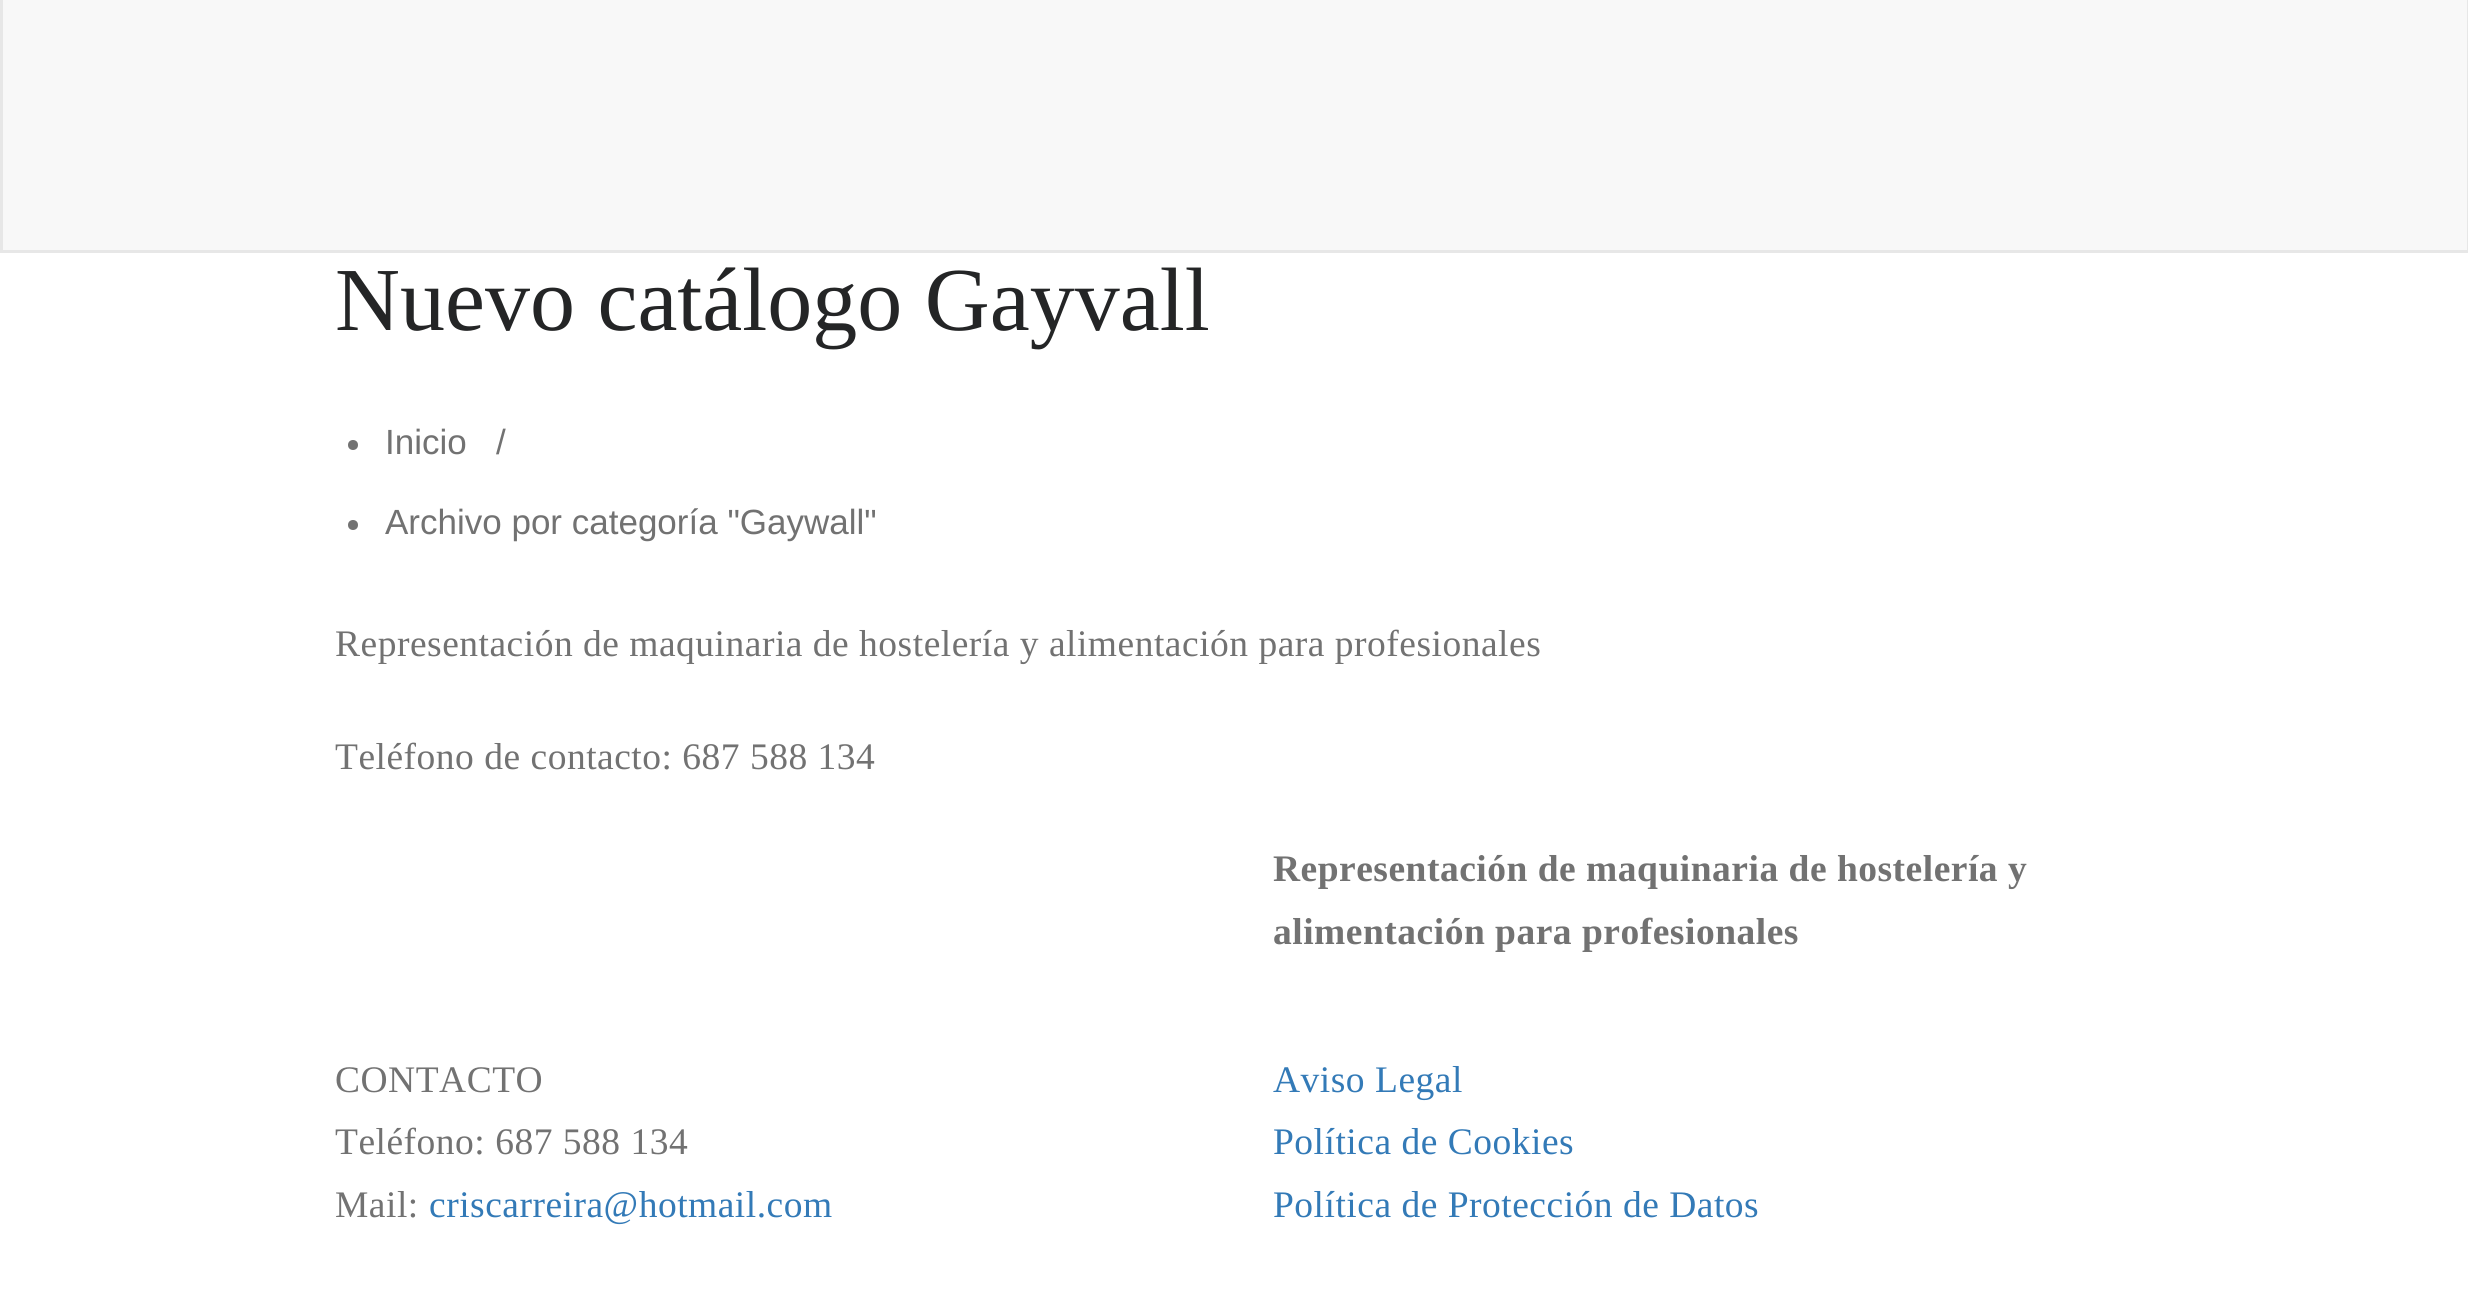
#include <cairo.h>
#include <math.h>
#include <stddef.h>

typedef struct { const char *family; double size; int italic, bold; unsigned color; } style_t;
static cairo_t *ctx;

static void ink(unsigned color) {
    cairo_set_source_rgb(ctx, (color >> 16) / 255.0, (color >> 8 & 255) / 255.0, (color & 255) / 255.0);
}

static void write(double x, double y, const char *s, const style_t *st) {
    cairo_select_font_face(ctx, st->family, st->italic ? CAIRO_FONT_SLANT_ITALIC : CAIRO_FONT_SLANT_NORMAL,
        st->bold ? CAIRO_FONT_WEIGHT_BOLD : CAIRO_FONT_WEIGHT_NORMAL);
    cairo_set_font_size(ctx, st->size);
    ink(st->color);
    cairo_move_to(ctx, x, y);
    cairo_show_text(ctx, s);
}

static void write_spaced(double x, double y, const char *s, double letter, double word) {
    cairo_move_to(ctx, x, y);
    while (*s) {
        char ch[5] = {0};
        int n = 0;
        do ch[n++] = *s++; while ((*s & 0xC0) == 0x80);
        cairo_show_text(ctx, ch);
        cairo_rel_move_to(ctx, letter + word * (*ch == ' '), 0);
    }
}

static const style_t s1 = {"Liberation Serif", 90, 0, 0, 0x242526};
static const style_t s2 = {"Liberation Sans", 35, 0, 0, 0x727272};

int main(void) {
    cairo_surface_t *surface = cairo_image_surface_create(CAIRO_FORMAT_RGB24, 2468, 1300);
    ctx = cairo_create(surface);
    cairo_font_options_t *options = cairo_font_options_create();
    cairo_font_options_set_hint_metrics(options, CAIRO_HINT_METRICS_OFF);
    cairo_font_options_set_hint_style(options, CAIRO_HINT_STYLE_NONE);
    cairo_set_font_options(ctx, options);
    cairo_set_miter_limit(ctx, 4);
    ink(0xffffff);
    cairo_paint(ctx);
    ink(0xf8f8f8);
    cairo_rectangle(ctx, 1.5, -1.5, 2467, 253);
    cairo_fill_preserve(ctx);
    ink(0xe7e7e7);
    cairo_set_line_width(ctx, 3);
    cairo_stroke(ctx);
    write(335, 330, "Nuevo catálogo Gayvall", &s1);
    ink(0x727272);
    cairo_new_path(ctx);
    cairo_arc(ctx, 353, 445, 5, 0, 2 * M_PI);
    cairo_fill(ctx);
    write(385, 454, "Inicio", &s2);
    write(496, 454, "/", &s2);
    cairo_new_path(ctx);
    cairo_arc(ctx, 353, 525, 5, 0, 2 * M_PI);
    cairo_fill(ctx);
    write(385, 534, "Archivo por categoría \"Gaywall\"", &s2);
    cairo_select_font_face(ctx, "Liberation Serif", CAIRO_FONT_SLANT_NORMAL, CAIRO_FONT_WEIGHT_NORMAL);
    cairo_set_font_size(ctx, 37.5);
    write_spaced(335, 656, "Representación de maquinaria de hostelería y alimentación para profesionales", 0.5, 0);
    write_spaced(335, 769, "Teléfono de contacto: 687 588 134", 0.5, 0);
    cairo_select_font_face(ctx, "Liberation Serif", CAIRO_FONT_SLANT_NORMAL, CAIRO_FONT_WEIGHT_BOLD);
    write_spaced(1273, 881, "Representación de maquinaria de hostelería y", 0.5, 0);
    write_spaced(1273, 944, "alimentación para profesionales", 0.5, 0);
    cairo_select_font_face(ctx, "Liberation Serif", CAIRO_FONT_SLANT_NORMAL, CAIRO_FONT_WEIGHT_NORMAL);
    write_spaced(335, 1092, "CONTACTO", 0.5, 0);
    write_spaced(335, 1154, "Teléfono: 687 588 134", 0.5, 0);
    write_spaced(335, 1217, "Mail:", 0.5, 0);
    ink(0x337ab7);
    write_spaced(429, 1217, "criscarreira@hotmail.com", 0.5, 0);
    write_spaced(1273, 1092, "Aviso Legal", 0.5, 0);
    write_spaced(1273, 1154, "Política de Cookies", 0.5, 0);
    write_spaced(1273, 1217, "Política de Protección de Datos", 0.5, 0);
    cairo_surface_write_to_png(surface, "screenshot.png");
    cairo_font_options_destroy(options);
    cairo_destroy(ctx);
    cairo_surface_destroy(surface);
    return 0;
}
